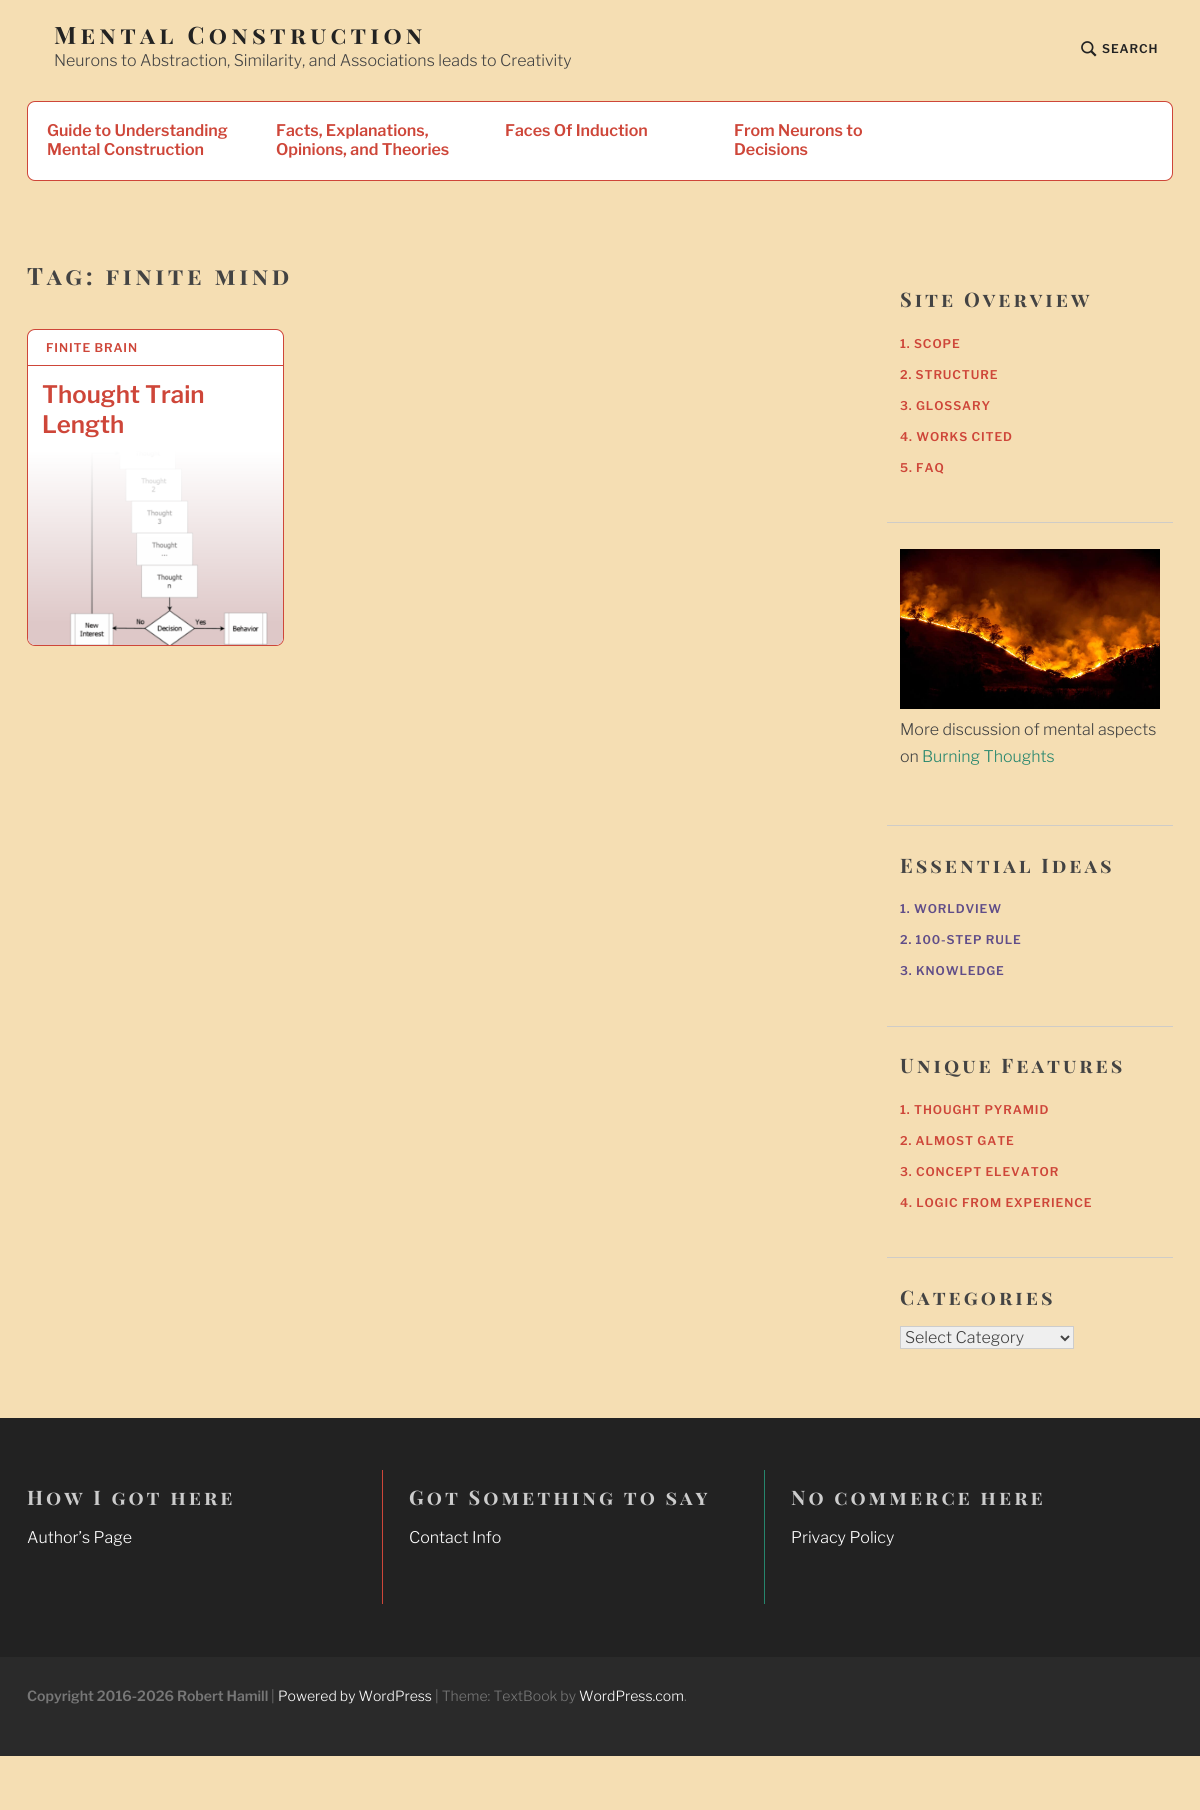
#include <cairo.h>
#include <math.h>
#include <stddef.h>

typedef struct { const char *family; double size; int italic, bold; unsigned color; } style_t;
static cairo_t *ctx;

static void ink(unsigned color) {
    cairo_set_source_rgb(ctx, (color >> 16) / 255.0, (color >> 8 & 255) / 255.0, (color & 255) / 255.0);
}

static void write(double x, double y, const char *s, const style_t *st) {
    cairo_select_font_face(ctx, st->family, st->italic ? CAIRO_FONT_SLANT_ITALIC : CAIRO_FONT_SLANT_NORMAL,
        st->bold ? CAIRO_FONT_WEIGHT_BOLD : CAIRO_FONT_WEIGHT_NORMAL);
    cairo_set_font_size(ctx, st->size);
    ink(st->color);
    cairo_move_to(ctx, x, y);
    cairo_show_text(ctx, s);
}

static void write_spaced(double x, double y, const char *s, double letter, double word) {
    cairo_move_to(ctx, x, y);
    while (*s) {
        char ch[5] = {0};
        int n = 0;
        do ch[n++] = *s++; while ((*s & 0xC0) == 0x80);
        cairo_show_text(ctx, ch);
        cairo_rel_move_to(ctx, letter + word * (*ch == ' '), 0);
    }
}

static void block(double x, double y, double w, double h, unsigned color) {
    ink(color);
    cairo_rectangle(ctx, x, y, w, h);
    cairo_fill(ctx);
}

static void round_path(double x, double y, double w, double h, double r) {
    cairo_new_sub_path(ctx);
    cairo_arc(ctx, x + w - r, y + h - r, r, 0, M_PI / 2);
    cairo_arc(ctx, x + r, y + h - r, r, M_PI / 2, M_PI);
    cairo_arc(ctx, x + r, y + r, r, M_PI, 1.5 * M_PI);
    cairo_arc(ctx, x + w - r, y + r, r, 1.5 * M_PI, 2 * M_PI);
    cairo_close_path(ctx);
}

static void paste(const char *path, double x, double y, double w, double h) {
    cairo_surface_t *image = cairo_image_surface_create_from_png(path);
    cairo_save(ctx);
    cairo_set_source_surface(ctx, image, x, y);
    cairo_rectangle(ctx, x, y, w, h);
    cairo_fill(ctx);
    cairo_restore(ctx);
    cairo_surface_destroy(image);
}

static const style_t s1 = {"Libre Franklin Light", 16, 0, 0, 0x434343};
static const style_t s2 = {"Libre Franklin SemiBold", 16, 0, 0, 0xce4639};
static const style_t s3 = {"Libre Franklin SemiBold", 24, 0, 0, 0xce4639};
static const style_t s4 = {"Libre Franklin Light", 16, 0, 0, 0x26866d};
static const style_t s5 = {"Libre Franklin Light", 16, 0, 0, 0xffffff};
static const style_t s6 = {"Libre Franklin SemiBold", 14, 0, 0, 0x777777};
static const style_t s7 = {"Libre Franklin Light", 14, 0, 0, 0x777777};
static const style_t s8 = {"Libre Franklin Light", 14, 0, 0, 0xffffff};

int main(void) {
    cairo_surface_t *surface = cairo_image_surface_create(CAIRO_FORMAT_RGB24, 1200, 1810);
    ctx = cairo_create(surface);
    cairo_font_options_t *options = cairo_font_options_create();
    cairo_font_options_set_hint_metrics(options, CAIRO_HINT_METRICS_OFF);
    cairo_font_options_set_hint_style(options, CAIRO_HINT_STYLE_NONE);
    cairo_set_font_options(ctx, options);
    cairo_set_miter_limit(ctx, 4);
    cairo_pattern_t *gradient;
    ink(0xf5deb3);
    cairo_paint(ctx);
    cairo_select_font_face(ctx, "Playfair Display SC", CAIRO_FONT_SLANT_NORMAL, CAIRO_FONT_WEIGHT_BOLD);
    cairo_set_font_size(ctx, 24);
    ink(0x222222);
    write_spaced(54, 44, "Mental Construction", 4.25, 0);
    write(54, 66, "Neurons to Abstraction, Similarity, and Associations leads to Creativity", &s1);
    paste("pic1.png", 1081, 41, 16, 16);
    cairo_select_font_face(ctx, "Libre Franklin SemiBold", CAIRO_FONT_SLANT_NORMAL, CAIRO_FONT_WEIGHT_NORMAL);
    cairo_set_font_size(ctx, 12);
    ink(0x222222);
    write_spaced(1102, 53, "SEARCH", 0.9, 0);
    ink(0xffffff);
    round_path(27.5, 101.5, 1145, 79, 7.5);
    cairo_fill_preserve(ctx);
    ink(0xce4639);
    cairo_set_line_width(ctx, 1);
    cairo_stroke(ctx);
    write(47, 136, "Guide to Understanding", &s2);
    write(47, 155, "Mental Construction", &s2);
    write(276, 136, "Facts, Explanations,", &s2);
    write(276, 155, "Opinions, and Theories", &s2);
    write(505, 136, "Faces Of Induction", &s2);
    write(734, 136, "From Neurons to", &s2);
    write(734, 155, "Decisions", &s2);
    cairo_select_font_face(ctx, "Playfair Display SC", CAIRO_FONT_SLANT_NORMAL, CAIRO_FONT_WEIGHT_BOLD);
    cairo_set_font_size(ctx, 24);
    ink(0x434343);
    write_spaced(27, 285, "Tag: finite mind", 3.6, 0);
    ink(0xffffff);
    round_path(27.5, 329.5, 256, 316, 7.5);
    cairo_fill_preserve(ctx);
    ink(0xce4639);
    cairo_stroke(ctx);
    cairo_select_font_face(ctx, "Libre Franklin SemiBold", CAIRO_FONT_SLANT_NORMAL, CAIRO_FONT_WEIGHT_NORMAL);
    cairo_set_font_size(ctx, 12);
    write_spaced(46, 352, "FINITE BRAIN", 0.9, 0);
    block(28, 365, 255, 1, 0xce4639);
    write(42, 403, "Thought Train", &s3);
    write(42, 433, "Length", &s3);
    paste("pic2.png", 28, 451, 255, 194);
    gradient = cairo_pattern_create_linear(156, 440, 156, 645);
    cairo_pattern_add_color_stop_rgba(gradient, 0.05, 1, 1, 1, 1);
    cairo_pattern_add_color_stop_rgba(gradient, 0.9, 1, 1, 1, 0);
    cairo_set_source(ctx, gradient);
    cairo_pattern_destroy(gradient);
    cairo_rectangle(ctx, 28, 451, 255, 170);
    cairo_fill(ctx);
    cairo_select_font_face(ctx, "Playfair Display SC", CAIRO_FONT_SLANT_NORMAL, CAIRO_FONT_WEIGHT_BOLD);
    cairo_set_font_size(ctx, 20);
    ink(0x434343);
    write_spaced(900, 307, "Site Overview", 3, 0);
    cairo_select_font_face(ctx, "Libre Franklin SemiBold", CAIRO_FONT_SLANT_NORMAL, CAIRO_FONT_WEIGHT_NORMAL);
    cairo_set_font_size(ctx, 12);
    ink(0xce4639);
    write_spaced(900, 348, "1. SCOPE", 0.9, 0);
    write_spaced(900, 379, "2. STRUCTURE", 0.9, 0);
    write_spaced(900, 410, "3. GLOSSARY", 0.9, 0);
    write_spaced(900, 441, "4. WORKS CITED", 0.9, 0);
    write_spaced(900, 472, "5. FAQ", 0.9, 0);
    block(887, 522, 286, 1, 0xcfccc7);
    paste("pic3.png", 900, 549, 260, 160);
    write(900, 735, "More discussion of mental aspects", &s1);
    write(900, 762, "on", &s1);
    write(922, 762, "Burning Thoughts", &s4);
    block(887, 825, 286, 1, 0xcfccc7);
    cairo_select_font_face(ctx, "Playfair Display SC", CAIRO_FONT_SLANT_NORMAL, CAIRO_FONT_WEIGHT_BOLD);
    cairo_set_font_size(ctx, 20);
    ink(0x434343);
    write_spaced(900, 873, "Essential Ideas", 3, 0);
    cairo_select_font_face(ctx, "Libre Franklin SemiBold", CAIRO_FONT_SLANT_NORMAL, CAIRO_FONT_WEIGHT_NORMAL);
    cairo_set_font_size(ctx, 12);
    ink(0x604d88);
    write_spaced(900, 913, "1. WORLDVIEW", 0.9, 0);
    write_spaced(900, 944, "2. 100-STEP RULE", 0.9, 0);
    write_spaced(900, 975, "3. KNOWLEDGE", 0.9, 0);
    block(887, 1026, 286, 1, 0xcfccc7);
    cairo_select_font_face(ctx, "Playfair Display SC", CAIRO_FONT_SLANT_NORMAL, CAIRO_FONT_WEIGHT_BOLD);
    cairo_set_font_size(ctx, 20);
    ink(0x434343);
    write_spaced(900, 1073, "Unique Features", 3, 0);
    cairo_select_font_face(ctx, "Libre Franklin SemiBold", CAIRO_FONT_SLANT_NORMAL, CAIRO_FONT_WEIGHT_NORMAL);
    cairo_set_font_size(ctx, 12);
    ink(0xce4639);
    write_spaced(900, 1114, "1. THOUGHT PYRAMID", 0.9, 0);
    write_spaced(900, 1145, "2. ALMOST GATE", 0.9, 0);
    write_spaced(900, 1176, "3. CONCEPT ELEVATOR", 0.9, 0);
    write_spaced(900, 1207, "4. LOGIC FROM EXPERIENCE", 0.9, 0);
    block(887, 1257, 286, 1, 0xcfccc7);
    cairo_select_font_face(ctx, "Playfair Display SC", CAIRO_FONT_SLANT_NORMAL, CAIRO_FONT_WEIGHT_BOLD);
    cairo_set_font_size(ctx, 20);
    ink(0x434343);
    write_spaced(900, 1305, "Categories", 3, 0);
    ink(0xefefef);
    cairo_rectangle(ctx, 900.5, 1326.5, 173, 22);
    cairo_fill_preserve(ctx);
    ink(0xcccccc);
    cairo_stroke(ctx);
    cairo_new_path(ctx);
    cairo_move_to(ctx, 1061, 1336);
    cairo_line_to(ctx, 1065, 1340);
    cairo_line_to(ctx, 1069, 1336);
    ink(0x434343);
    cairo_set_line_width(ctx, 2);
    cairo_stroke(ctx);
    write(905, 1343, "Select Category", &s1);
    block(0, 1418, 1200, 239, 0x222222);
    cairo_select_font_face(ctx, "Playfair Display SC", CAIRO_FONT_SLANT_NORMAL, CAIRO_FONT_WEIGHT_BOLD);
    cairo_set_font_size(ctx, 20);
    ink(0xcccccc);
    write_spaced(27, 1505, "How I got here", 3, 0);
    write(27, 1543, "Author’s Page", &s5);
    block(382, 1470, 1, 134, 0xce4639);
    cairo_select_font_face(ctx, "Playfair Display SC", CAIRO_FONT_SLANT_NORMAL, CAIRO_FONT_WEIGHT_BOLD);
    cairo_set_font_size(ctx, 20);
    ink(0xcccccc);
    write_spaced(409, 1505, "Got Something to say", 3, 0);
    write(409, 1543, "Contact Info", &s5);
    block(764, 1470, 1, 134, 0x26866d);
    cairo_select_font_face(ctx, "Playfair Display SC", CAIRO_FONT_SLANT_NORMAL, CAIRO_FONT_WEIGHT_BOLD);
    cairo_set_font_size(ctx, 20);
    ink(0xcccccc);
    write_spaced(791, 1505, "No commerce here", 3, 0);
    write(791, 1543, "Privacy Policy", &s5);
    block(0, 1657, 1200, 99, 0x2a2a2a);
    write(27, 1701, "Copyright 2016-2026 Robert Hamill", &s6);
    write(271, 1701, "|", &s7);
    write(278, 1701, "Powered by WordPress", &s8);
    write(435, 1701, "| Theme: TextBook by", &s7);
    write(579, 1701, "WordPress.com", &s8);
    write(684, 1701, ".", &s7);
    cairo_surface_write_to_png(surface, "screenshot.png");
    cairo_font_options_destroy(options);
    cairo_destroy(ctx);
    cairo_surface_destroy(surface);
    return 0;
}
